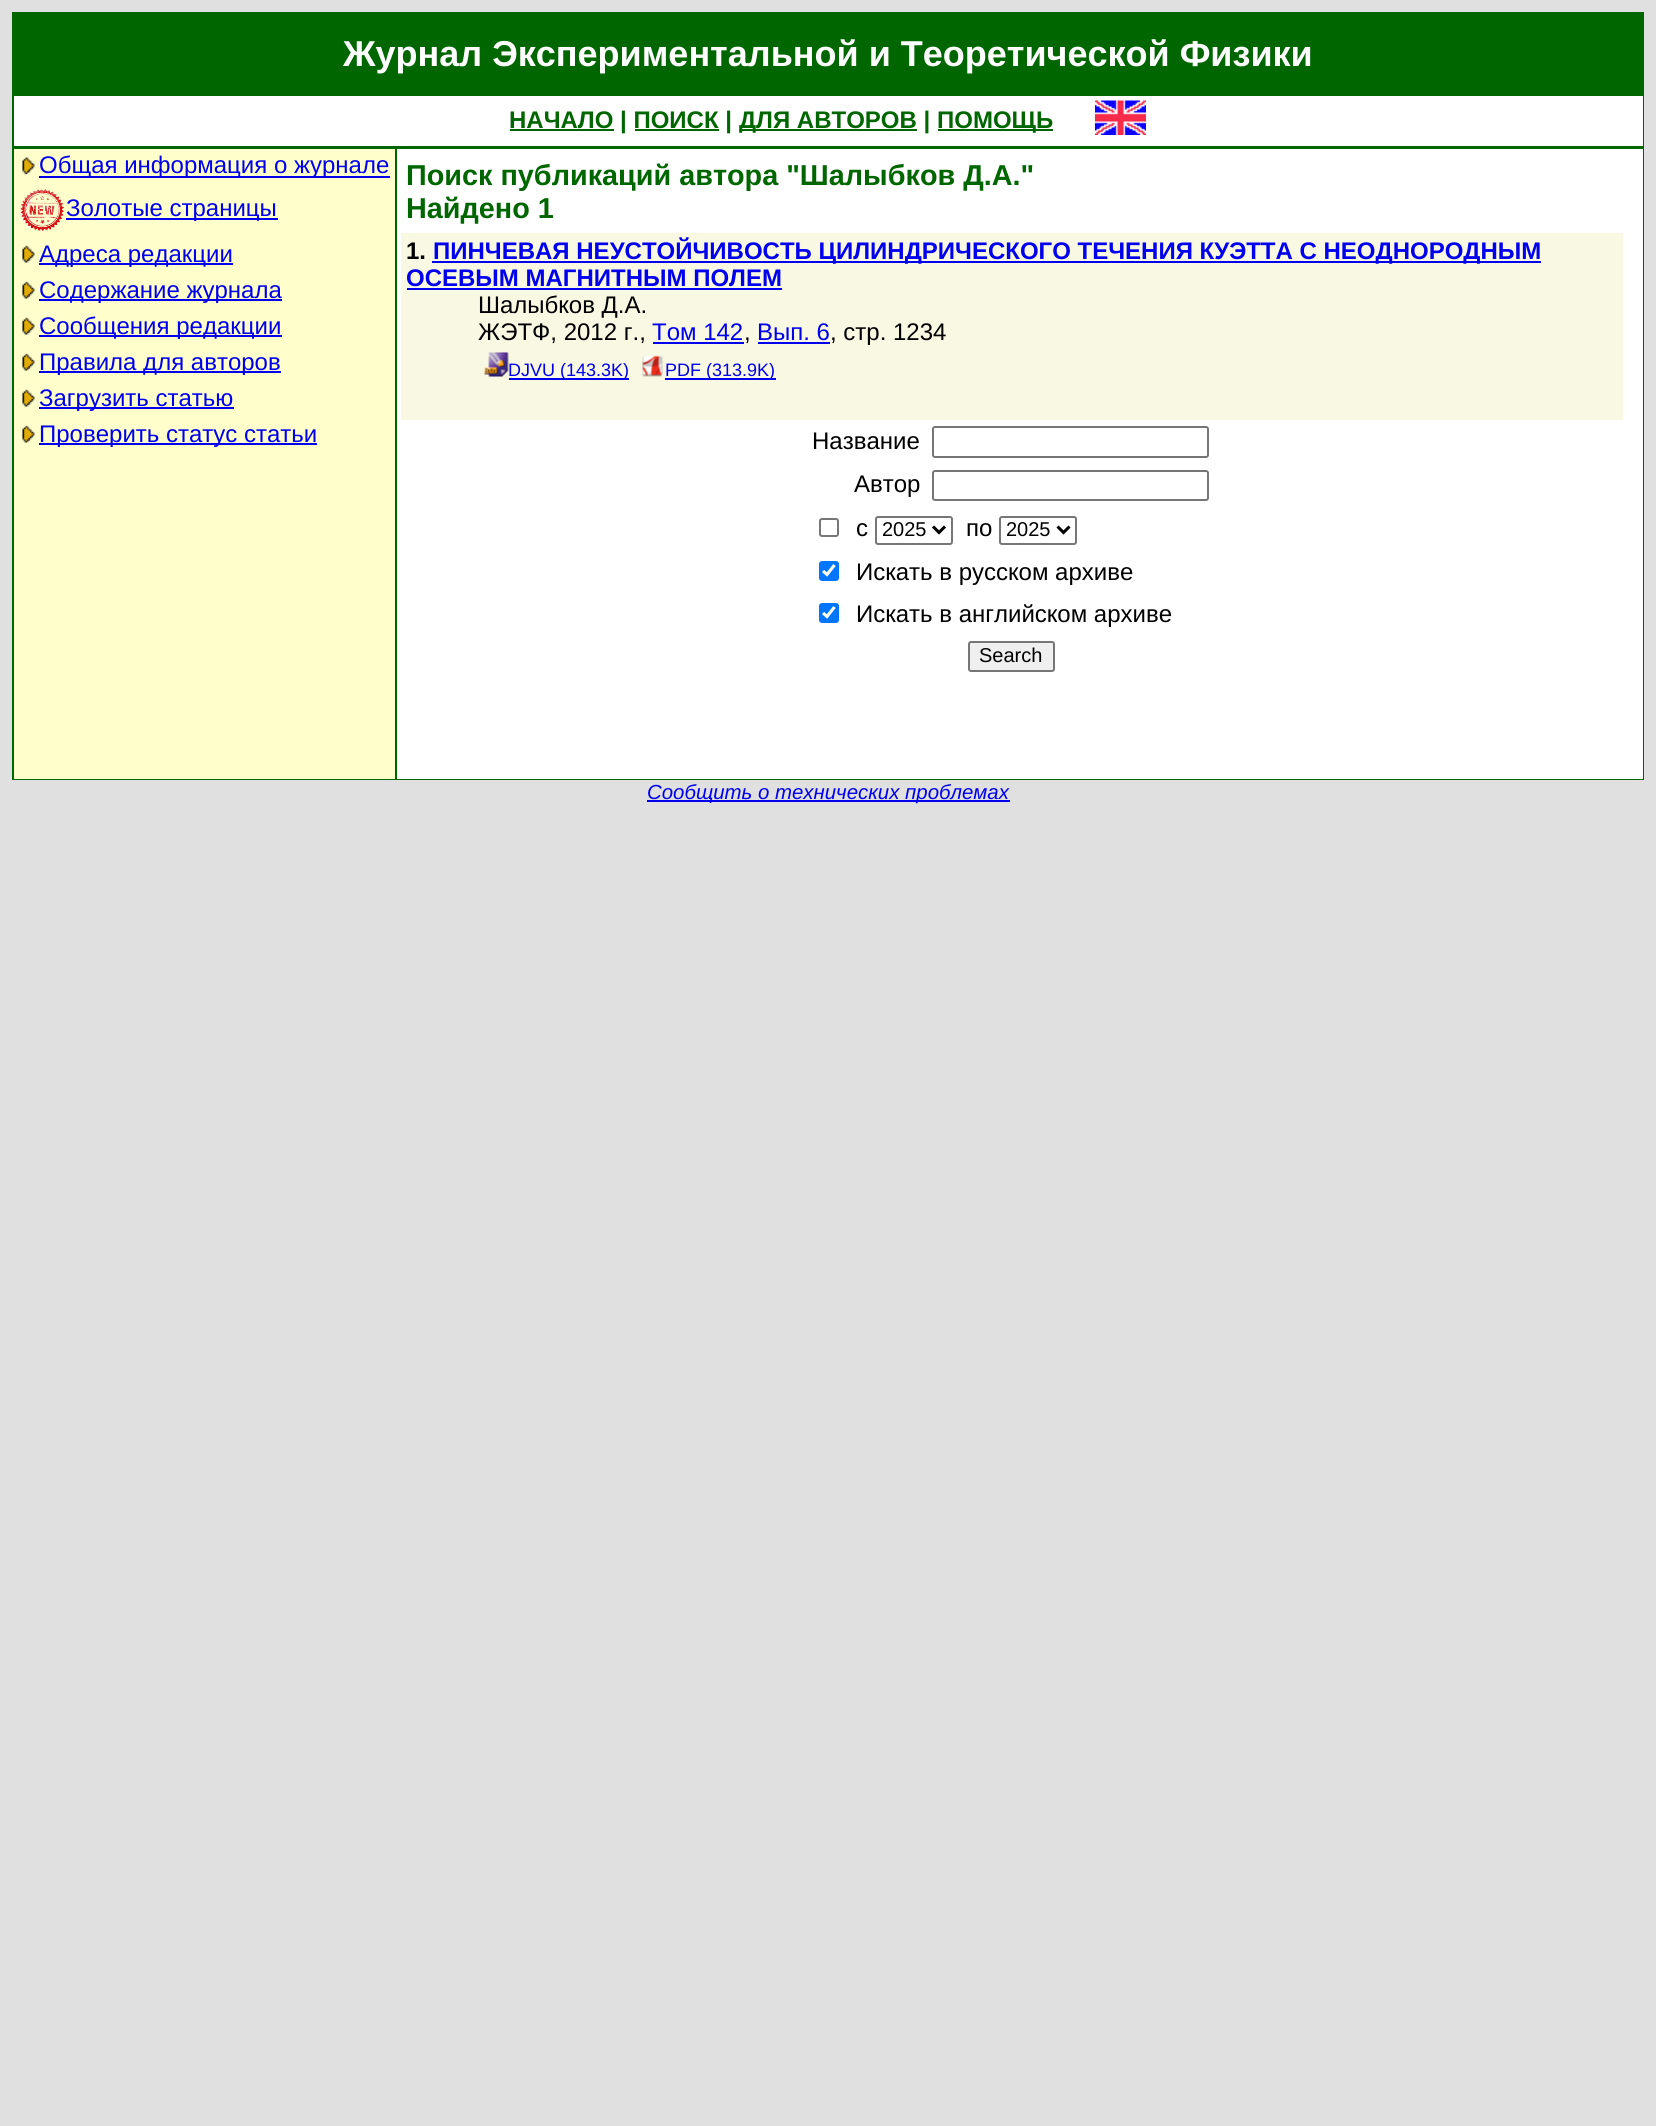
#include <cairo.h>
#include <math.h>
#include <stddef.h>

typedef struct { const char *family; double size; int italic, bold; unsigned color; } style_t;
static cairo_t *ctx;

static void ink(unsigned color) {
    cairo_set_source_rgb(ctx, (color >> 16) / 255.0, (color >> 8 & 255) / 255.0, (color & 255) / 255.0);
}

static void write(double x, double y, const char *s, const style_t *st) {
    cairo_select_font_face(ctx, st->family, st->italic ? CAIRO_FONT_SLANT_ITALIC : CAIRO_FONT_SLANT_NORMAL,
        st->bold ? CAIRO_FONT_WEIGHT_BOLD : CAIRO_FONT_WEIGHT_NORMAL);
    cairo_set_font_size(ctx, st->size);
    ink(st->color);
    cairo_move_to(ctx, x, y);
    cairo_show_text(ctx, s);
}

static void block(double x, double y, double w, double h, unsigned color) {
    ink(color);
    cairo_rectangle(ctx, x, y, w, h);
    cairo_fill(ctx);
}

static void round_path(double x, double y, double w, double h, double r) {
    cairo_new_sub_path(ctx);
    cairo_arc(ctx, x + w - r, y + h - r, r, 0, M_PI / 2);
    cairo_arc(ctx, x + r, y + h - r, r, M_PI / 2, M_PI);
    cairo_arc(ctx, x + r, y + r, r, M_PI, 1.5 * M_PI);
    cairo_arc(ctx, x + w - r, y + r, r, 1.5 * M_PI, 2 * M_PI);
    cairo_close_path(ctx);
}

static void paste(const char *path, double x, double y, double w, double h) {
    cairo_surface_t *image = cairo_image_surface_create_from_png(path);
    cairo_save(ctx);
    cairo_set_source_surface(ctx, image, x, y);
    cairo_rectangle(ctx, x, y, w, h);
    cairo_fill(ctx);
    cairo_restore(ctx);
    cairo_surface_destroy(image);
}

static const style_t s1 = {"Liberation Sans", 36, 0, 1, 0xffffff};
static const style_t s2 = {"Liberation Sans", 24, 0, 1, 0x006600};
static const style_t s3 = {"Liberation Sans", 24, 0, 0, 0x0000ee};
static const style_t s4 = {"Liberation Sans", 28.8, 0, 1, 0x006600};
static const style_t s5 = {"Liberation Sans", 24, 0, 1, 0x000000};
static const style_t s6 = {"Liberation Sans", 24, 0, 1, 0x0000ee};
static const style_t s7 = {"Liberation Sans", 24, 0, 0, 0x000000};
static const style_t s8 = {"Liberation Sans", 18, 0, 0, 0x0000ee};
static const style_t s9 = {"Liberation Sans", 20, 0, 0, 0x000000};
static const style_t s10 = {"Liberation Sans", 20.4, 1, 0, 0x0000ee};

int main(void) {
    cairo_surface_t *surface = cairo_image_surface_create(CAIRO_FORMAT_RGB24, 1656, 2126);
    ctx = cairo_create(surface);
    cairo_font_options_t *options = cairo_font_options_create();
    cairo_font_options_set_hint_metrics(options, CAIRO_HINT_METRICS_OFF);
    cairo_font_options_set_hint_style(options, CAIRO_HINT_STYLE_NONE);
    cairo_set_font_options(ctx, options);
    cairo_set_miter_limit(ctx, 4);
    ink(0xe0e0e0);
    cairo_paint(ctx);
    block(12, 12, 1632, 768, 0x006600);
    block(14, 96, 1629, 683, 0xffffff);
    write(343, 66, "Журнал Экспериментальной и Теоретической Физики", &s1);
    block(510, 129, 104, 2, 0x006600);
    write(509, 128, "НАЧАЛО | ПОИСК |", &s2);
    block(740, 129, 177, 2, 0x006600);
    write(739, 128, "ДЛЯ АВТОРОВ |", &s2);
    block(938, 129, 115, 2, 0x006600);
    write(937, 128, "ПОМОЩЬ", &s2);
    block(635, 129, 84, 2, 0x006600);
    paste("pic1.png", 1095, 100, 51, 35);
    block(14, 146, 1629, 3, 0x006600);
    block(14, 149, 381, 630, 0xffffcc);
    paste("pic2.png", 21, 157, 14, 18);
    block(39, 176, 351, 2, 0x0000ee);
    write(39, 173, "Общая информация о журнале", &s3);
    paste("pic3.png", 19, 189, 45, 42);
    block(66, 218, 212, 2, 0x0000ee);
    write(66, 216, "Золотые страницы", &s3);
    paste("pic4.png", 21, 245, 14, 18);
    block(39, 263, 194, 2, 0x0000ee);
    write(39, 262, "Адреса редакции", &s3);
    paste("pic4.png", 21, 281, 14, 18);
    block(39, 299, 243, 2, 0x0000ee);
    write(39, 298, "Содержание журнала", &s3);
    paste("pic4.png", 21, 317, 14, 18);
    block(39, 335, 243, 2, 0x0000ee);
    write(39, 334, "Сообщения редакции", &s3);
    paste("pic4.png", 21, 353, 14, 18);
    block(39, 371, 242, 2, 0x0000ee);
    write(39, 370, "Правила для авторов", &s3);
    paste("pic4.png", 21, 389, 14, 18);
    block(39, 407, 195, 2, 0x0000ee);
    write(39, 406, "Загрузить статью", &s3);
    paste("pic4.png", 21, 425, 14, 18);
    block(39, 443, 278, 2, 0x0000ee);
    write(39, 442, "Проверить статус статьи", &s3);
    block(395, 149, 2, 630, 0x006600);
    write(406, 185, "Поиск публикаций автора \"Шалыбков Д.А.\"", &s4);
    write(406, 218, "Найдено 1", &s4);
    block(401, 233, 1222, 187, 0xf8f8e3);
    write(406, 259, "1.", &s5);
    block(432, 261, 1109, 2, 0x0000ee);
    write(433, 259, "ПИНЧЕВАЯ НЕУСТОЙЧИВОСТЬ ЦИЛИНДРИЧЕСКОГО ТЕЧЕНИЯ КУЭТТА С НЕОДНОРОДНЫМ", &s6);
    write(406, 286, "ОСЕВЫМ МАГНИТНЫМ ПОЛЕМ", &s6);
    block(407, 288, 375, 2, 0x0000ee);
    write(478, 313, "Шалыбков Д.А.", &s7);
    write(478, 340, "ЖЭТФ, 2012 г.,", &s7);
    write(652, 340, "Том 142", &s3);
    block(653, 342, 91, 2, 0x0000ee);
    write(744, 340, ",", &s7);
    write(757, 340, "Вып. 6", &s3);
    block(758, 342, 72, 2, 0x0000ee);
    write(830, 340, ", стр. 1234", &s7);
    paste("pic5.png", 484, 352, 25, 25);
    block(509, 378, 120, 2, 0x0000ee);
    write(508, 376, "DJVU (143.3K)", &s8);
    paste("pic6.png", 642, 355, 21, 22);
    block(665, 378, 111, 2, 0x0000ee);
    write(665, 376, "PDF (313.9K)", &s8);
    write(812, 449, "Название", &s7);
    round_path(933, 427, 275, 30, 2);
    ink(0x767676);
    cairo_stroke(ctx);
    write(854, 492, "Автор", &s7);
    round_path(933, 471, 275, 29, 2);
    ink(0x767676);
    cairo_stroke(ctx);
    round_path(820, 519, 18, 17, 2);
    cairo_stroke(ctx);
    write(856, 536, "с", &s7);
    round_path(876, 517, 76, 27, 2);
    ink(0x767676);
    cairo_stroke(ctx);
    cairo_new_path(ctx);
    cairo_move_to(ctx, 933, 526.5);
    cairo_line_to(ctx, 939, 532.5);
    cairo_line_to(ctx, 945, 526.5);
    ink(0x000000);
    cairo_set_line_width(ctx, 3);
    cairo_stroke(ctx);
    write(882, 536, "2025", &s9);
    write(966, 536, "по", &s7);
    round_path(1000, 517, 76, 27, 2);
    ink(0x767676);
    cairo_set_line_width(ctx, 2);
    cairo_stroke(ctx);
    cairo_new_path(ctx);
    cairo_move_to(ctx, 1057.5, 526.5);
    cairo_line_to(ctx, 1063.5, 532.5);
    cairo_line_to(ctx, 1069.5, 526.5);
    ink(0x000000);
    cairo_set_line_width(ctx, 3);
    cairo_stroke(ctx);
    write(1006, 536, "2025", &s9);
    ink(0x0075ff);
    round_path(819, 561, 20, 20, 3);
    cairo_fill(ctx);
    cairo_new_path(ctx);
    cairo_move_to(ctx, 823, 571);
    cairo_line_to(ctx, 827, 574.5);
    cairo_line_to(ctx, 834.5, 565);
    ink(0xffffff);
    cairo_set_line_width(ctx, 3.1);
    cairo_stroke(ctx);
    write(856, 580, "Искать в русском архиве", &s7);
    ink(0x0075ff);
    round_path(819, 603, 20, 20, 3);
    cairo_fill(ctx);
    cairo_new_path(ctx);
    cairo_move_to(ctx, 823, 613);
    cairo_line_to(ctx, 827, 616.5);
    cairo_line_to(ctx, 834.5, 607);
    ink(0xffffff);
    cairo_stroke(ctx);
    write(856, 622, "Искать в английском архиве", &s7);
    ink(0xefefef);
    round_path(969, 642, 85, 29, 2);
    cairo_fill_preserve(ctx);
    ink(0x767676);
    cairo_set_line_width(ctx, 2);
    cairo_stroke(ctx);
    write(979, 662, "Search", &s9);
    block(647, 800, 363, 2, 0x0000ee);
    write(647, 799, "Сообщить о технических проблемах", &s10);
    cairo_surface_write_to_png(surface, "screenshot.png");
    cairo_font_options_destroy(options);
    cairo_destroy(ctx);
    cairo_surface_destroy(surface);
    return 0;
}
